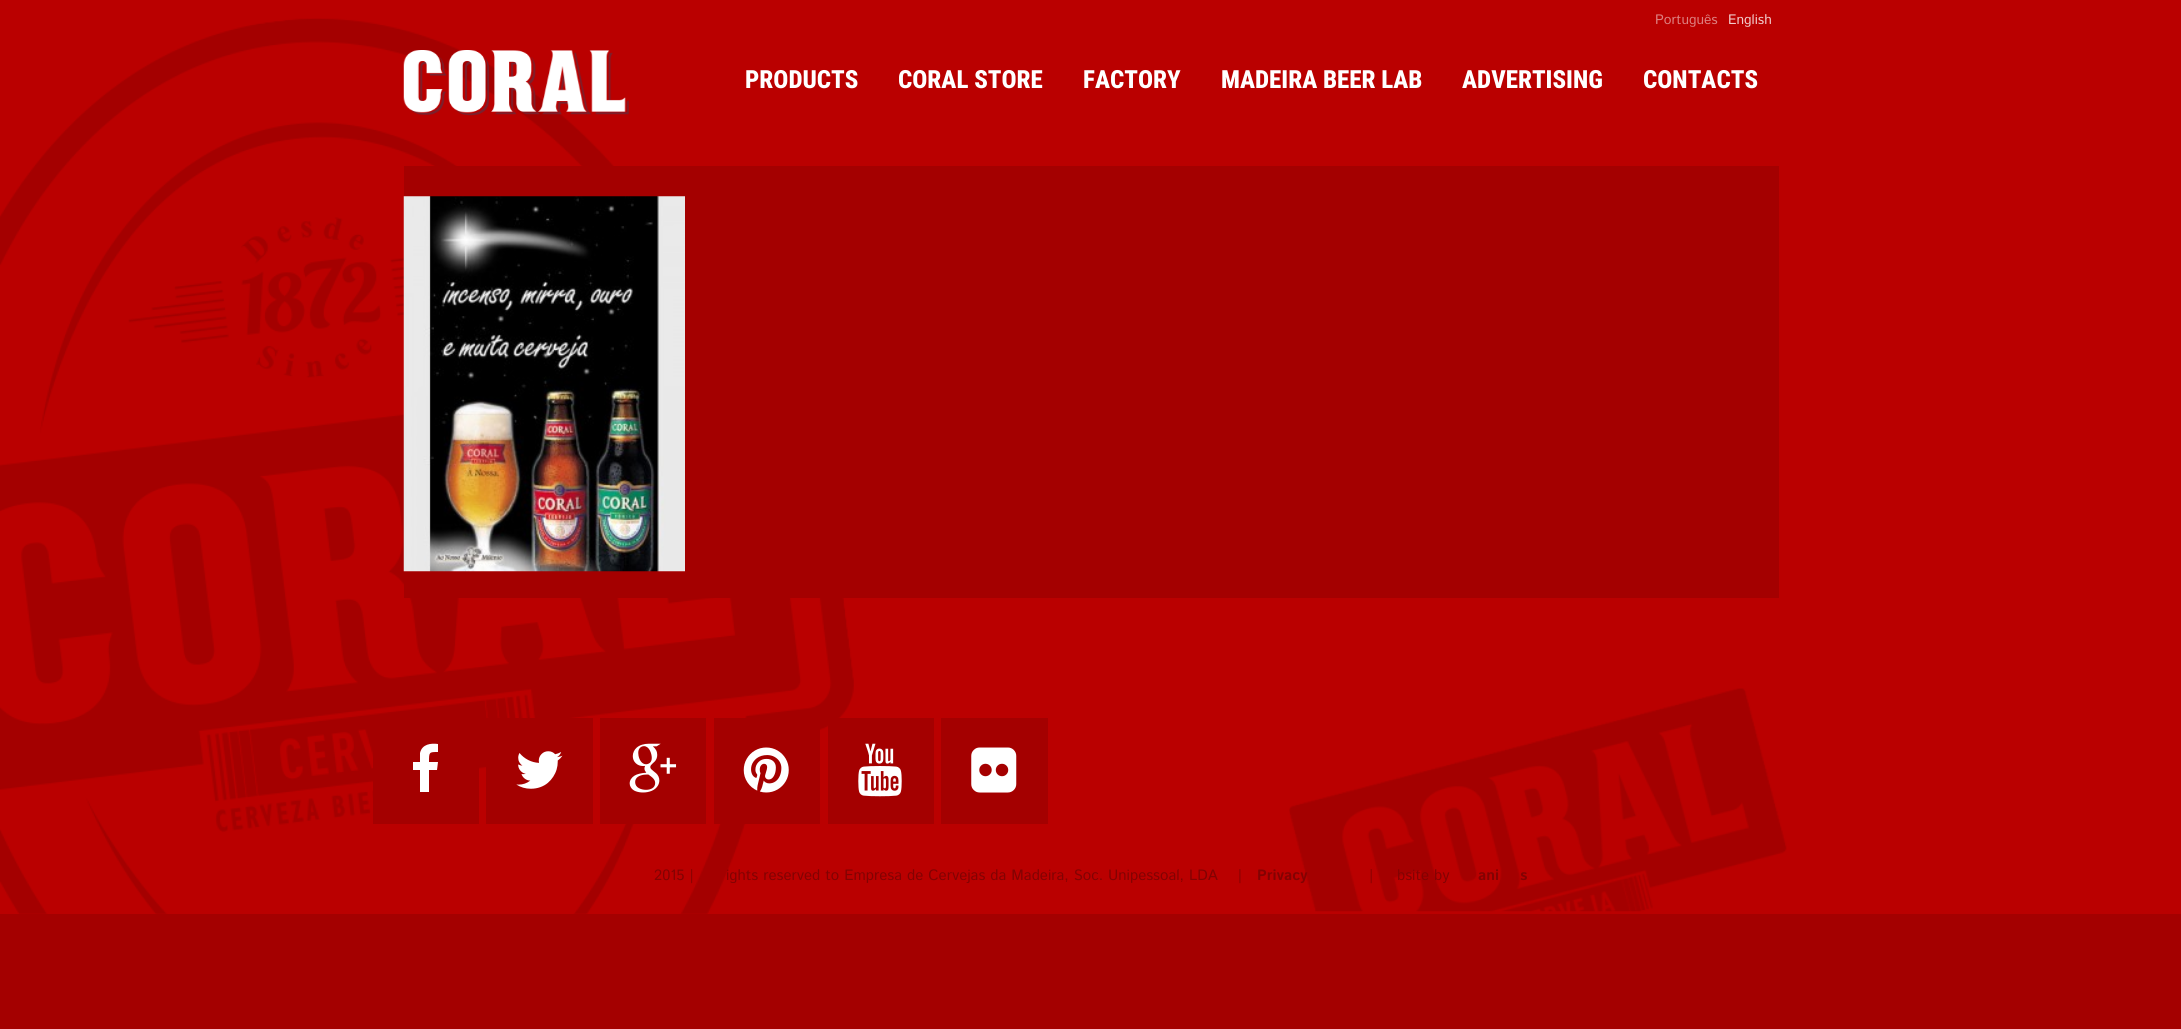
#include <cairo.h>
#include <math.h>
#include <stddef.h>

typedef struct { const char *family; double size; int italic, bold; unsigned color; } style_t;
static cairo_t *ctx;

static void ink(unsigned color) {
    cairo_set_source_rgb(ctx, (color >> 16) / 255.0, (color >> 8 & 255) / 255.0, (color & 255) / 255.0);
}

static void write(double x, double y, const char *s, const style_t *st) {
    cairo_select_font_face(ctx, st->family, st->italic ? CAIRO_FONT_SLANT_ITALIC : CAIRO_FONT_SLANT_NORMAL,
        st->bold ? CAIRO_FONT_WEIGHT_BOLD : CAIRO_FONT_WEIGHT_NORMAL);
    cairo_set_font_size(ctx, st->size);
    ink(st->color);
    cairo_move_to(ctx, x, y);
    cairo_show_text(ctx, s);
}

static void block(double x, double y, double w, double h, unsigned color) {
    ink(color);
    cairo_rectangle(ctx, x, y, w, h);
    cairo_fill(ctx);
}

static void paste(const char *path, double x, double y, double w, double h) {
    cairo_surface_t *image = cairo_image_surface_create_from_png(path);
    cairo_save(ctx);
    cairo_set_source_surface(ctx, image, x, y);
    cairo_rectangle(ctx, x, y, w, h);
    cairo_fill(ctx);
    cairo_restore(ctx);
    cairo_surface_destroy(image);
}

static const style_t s1 = {"Istok Web", 13.75, 0, 0, 0xdd8080};
static const style_t s2 = {"Istok Web", 13.75, 0, 0, 0xf1cccc};
static const style_t s3 = {"Roboto Condensed ExtraBold", 25, 0, 0, 0xffffff};
static const style_t s4 = {"Istok Web", 15, 0, 0, 0x820202};
static const style_t s5 = {"Istok Web", 15, 0, 1, 0x820202};

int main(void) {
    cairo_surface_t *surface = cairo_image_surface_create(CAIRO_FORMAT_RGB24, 2181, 1029);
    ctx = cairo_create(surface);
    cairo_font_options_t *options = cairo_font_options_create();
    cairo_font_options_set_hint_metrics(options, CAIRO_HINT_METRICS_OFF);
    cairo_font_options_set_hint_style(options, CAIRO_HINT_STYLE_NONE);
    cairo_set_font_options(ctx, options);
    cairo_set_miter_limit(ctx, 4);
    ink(0xa40000);
    cairo_paint(ctx);
    block(0, 0, 2181, 914, 0xba0000);
    paste("pic1.png", 0, 18, 854, 896);
    write(1655, 24, "Português", &s1);
    write(1728, 24, "English", &s2);
    paste("pic2.png", 403, 50, 226, 66);
    write(745, 88, "PRODUCTS", &s3);
    write(898, 88, "CORAL STORE", &s3);
    write(1083, 88, "FACTORY", &s3);
    write(1221, 88, "MADEIRA BEER LAB", &s3);
    write(1462, 88, "ADVERTISING", &s3);
    write(1643, 88, "CONTACTS", &s3);
    block(404, 166, 1375, 432, 0xa40000);
    paste("pic3.png", 403, 196, 282, 376);
    paste("pic4.png", 1289, 688, 498, 224);
    block(373, 718, 106, 106, 0xa40000);
    ink(0xffffff);
    cairo_new_path(ctx);
    cairo_move_to(ctx, 438, 744);
    cairo_line_to(ctx, 438, 752);
    cairo_curve_to(ctx, 429, 752, 429, 752, 429, 762);
    cairo_line_to(ctx, 438, 762);
    cairo_line_to(ctx, 437, 770);
    cairo_line_to(ctx, 429, 770);
    cairo_line_to(ctx, 429, 792);
    cairo_line_to(ctx, 420, 792);
    cairo_line_to(ctx, 420, 770);
    cairo_line_to(ctx, 413, 770);
    cairo_line_to(ctx, 413, 762);
    cairo_line_to(ctx, 420, 762);
    cairo_line_to(ctx, 420, 753);
    cairo_curve_to(ctx, 422, 744, 431, 743, 438, 744);
    cairo_close_path(ctx);
    cairo_fill(ctx);
    block(486, 718, 107, 106, 0xa40000);
    paste("pic5.png", 516, 751, 47, 38);
    block(600, 718, 106, 106, 0xa40000);
    paste("pic6.png", 629, 743, 48, 50);
    block(714, 718, 106, 106, 0xa40000);
    paste("pic7.png", 743, 747, 46, 46);
    block(828, 718, 106, 106, 0xa40000);
    paste("pic8.png", 858, 743, 44, 54);
    block(941, 718, 107, 106, 0xa40000);
    paste("pic9.png", 971, 747, 46, 46);
    write(654, 880, "2015 |", &s4);
    write(726, 880, "ights reserved to Empresa de Cervejas da Madeira, Soc. Unipessoal, LDA    |", &s4);
    write(1257, 880, "Privacy", &s5);
    write(1369, 880, "|", &s4);
    write(1397, 880, "bsite by", &s4);
    write(1478, 880, "ani", &s5);
    write(1520, 880, "s", &s5);
    cairo_surface_write_to_png(surface, "screenshot.png");
    cairo_font_options_destroy(options);
    cairo_destroy(ctx);
    cairo_surface_destroy(surface);
    return 0;
}
